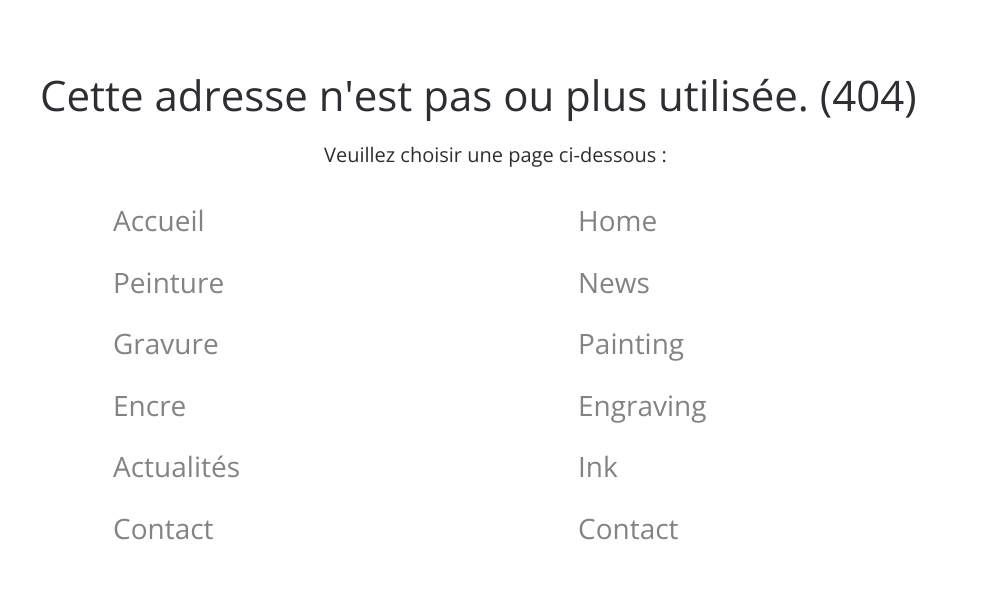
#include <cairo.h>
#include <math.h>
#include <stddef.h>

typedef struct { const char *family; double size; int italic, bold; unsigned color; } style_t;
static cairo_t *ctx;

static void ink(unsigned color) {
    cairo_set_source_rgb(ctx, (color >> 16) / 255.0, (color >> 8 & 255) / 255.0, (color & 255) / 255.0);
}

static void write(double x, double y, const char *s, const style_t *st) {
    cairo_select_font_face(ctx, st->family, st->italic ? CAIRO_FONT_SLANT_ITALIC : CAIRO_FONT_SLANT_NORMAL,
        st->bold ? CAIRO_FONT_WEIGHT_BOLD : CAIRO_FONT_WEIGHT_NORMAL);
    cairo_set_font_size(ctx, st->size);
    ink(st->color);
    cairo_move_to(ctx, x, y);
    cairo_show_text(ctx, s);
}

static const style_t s1 = {"Open Sans", 42, 0, 0, 0x2d2e33};
static const style_t s2 = {"Open Sans", 20, 0, 0, 0x2d2e33};
static const style_t s3 = {"Open Sans", 28, 0, 0, 0x848383};

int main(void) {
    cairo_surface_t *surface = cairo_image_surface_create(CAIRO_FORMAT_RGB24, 991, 601);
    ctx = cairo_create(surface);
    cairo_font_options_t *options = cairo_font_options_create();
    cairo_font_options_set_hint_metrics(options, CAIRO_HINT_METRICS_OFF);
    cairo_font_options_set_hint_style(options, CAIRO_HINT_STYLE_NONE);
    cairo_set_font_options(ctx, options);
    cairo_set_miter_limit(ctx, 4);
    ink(0xffffff);
    cairo_paint(ctx);
    write(40, 111, "Cette adresse n'est pas ou plus utilisée. (404)", &s1);
    write(324, 162, "Veuillez choisir une page ci-dessous :", &s2);
    write(113, 231, "Accueil", &s3);
    write(113, 293, "Peinture", &s3);
    write(113, 354, "Gravure", &s3);
    write(113, 416, "Encre", &s3);
    write(113, 477, "Actualités", &s3);
    write(113, 539, "Contact", &s3);
    write(578, 231, "Home", &s3);
    write(578, 293, "News", &s3);
    write(578, 354, "Painting", &s3);
    write(578, 416, "Engraving", &s3);
    write(578, 477, "Ink", &s3);
    write(578, 539, "Contact", &s3);
    cairo_surface_write_to_png(surface, "screenshot.png");
    cairo_font_options_destroy(options);
    cairo_destroy(ctx);
    cairo_surface_destroy(surface);
    return 0;
}
